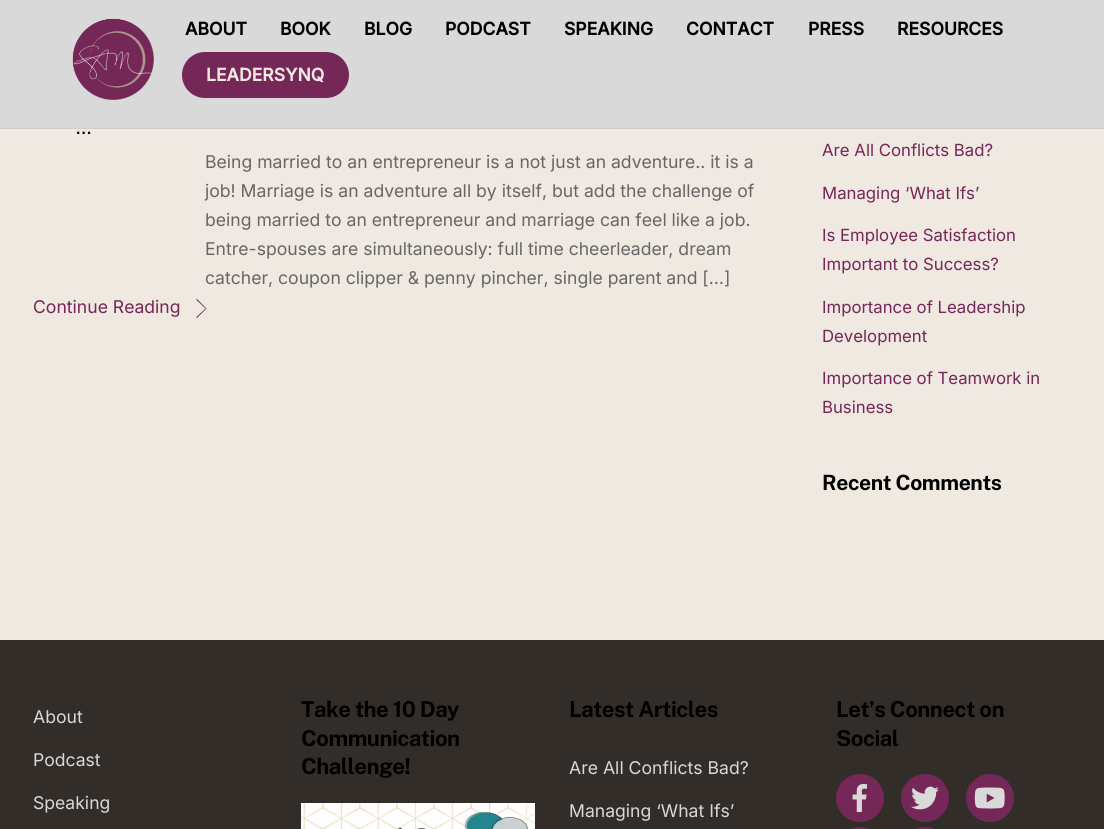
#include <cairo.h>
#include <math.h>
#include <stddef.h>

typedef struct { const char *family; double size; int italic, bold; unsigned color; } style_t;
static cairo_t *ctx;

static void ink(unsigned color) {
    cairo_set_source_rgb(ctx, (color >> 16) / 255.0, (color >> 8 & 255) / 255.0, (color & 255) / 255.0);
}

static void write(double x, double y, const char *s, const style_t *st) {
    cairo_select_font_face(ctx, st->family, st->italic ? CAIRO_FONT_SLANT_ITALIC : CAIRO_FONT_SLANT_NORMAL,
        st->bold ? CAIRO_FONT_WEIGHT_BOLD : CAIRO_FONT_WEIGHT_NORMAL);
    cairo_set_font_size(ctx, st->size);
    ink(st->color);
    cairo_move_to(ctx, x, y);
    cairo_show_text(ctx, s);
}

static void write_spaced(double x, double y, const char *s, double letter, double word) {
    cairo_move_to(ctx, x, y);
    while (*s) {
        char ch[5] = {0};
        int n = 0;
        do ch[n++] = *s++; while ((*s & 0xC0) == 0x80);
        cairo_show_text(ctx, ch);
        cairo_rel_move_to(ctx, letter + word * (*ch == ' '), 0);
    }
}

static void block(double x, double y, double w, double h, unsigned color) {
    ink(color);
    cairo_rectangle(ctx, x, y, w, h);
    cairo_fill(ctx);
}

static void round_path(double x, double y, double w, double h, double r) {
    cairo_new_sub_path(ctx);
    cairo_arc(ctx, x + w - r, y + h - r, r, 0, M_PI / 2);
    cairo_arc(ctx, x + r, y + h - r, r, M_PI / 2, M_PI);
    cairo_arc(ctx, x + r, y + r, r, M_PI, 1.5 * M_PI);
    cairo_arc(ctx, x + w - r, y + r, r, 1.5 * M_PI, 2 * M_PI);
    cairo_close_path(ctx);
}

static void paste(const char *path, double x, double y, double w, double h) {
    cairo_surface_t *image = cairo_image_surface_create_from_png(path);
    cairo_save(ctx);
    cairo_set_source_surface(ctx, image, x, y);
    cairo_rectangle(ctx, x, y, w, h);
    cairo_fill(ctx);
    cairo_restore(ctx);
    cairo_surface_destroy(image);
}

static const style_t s1 = {"Inter", 17.6, 0, 1, 0x000000};
static const style_t s2 = {"Inter", 17.6, 0, 1, 0xefe9e1};
static const style_t s3 = {"Inter", 17.6, 0, 0, 0x666666};
static const style_t s4 = {"Inter", 17.6, 0, 0, 0x752757};
static const style_t s5 = {"Inter", 16.75, 0, 0, 0x752757};
static const style_t s6 = {"Inter", 17.6, 0, 0, 0xd9d9d9};

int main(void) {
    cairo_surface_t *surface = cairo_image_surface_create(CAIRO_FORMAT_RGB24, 1104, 829);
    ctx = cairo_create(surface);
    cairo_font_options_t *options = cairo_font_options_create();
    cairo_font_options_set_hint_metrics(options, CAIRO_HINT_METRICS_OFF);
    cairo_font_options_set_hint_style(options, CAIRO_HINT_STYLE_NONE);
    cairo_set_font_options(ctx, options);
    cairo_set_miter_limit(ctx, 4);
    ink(0xefe9e1);
    cairo_paint(ctx);
    block(0, 0, 1104, 128, 0xd9d9d9);
    block(0, 128, 1104, 1, 0xcecece);
    paste("pic1.png", 72, 18, 82, 82);
    write(185, 35, "ABOUT", &s1);
    write(280, 35, "BOOK", &s1);
    write(364, 35, "BLOG", &s1);
    write(445, 35, "PODCAST", &s1);
    write(564, 35, "SPEAKING", &s1);
    write(686, 35, "CONTACT", &s1);
    write(808, 35, "PRESS", &s1);
    write(897, 35, "RESOURCES", &s1);
    ink(0x752757);
    round_path(182, 52, 167, 46, 23);
    cairo_fill(ctx);
    write(206, 81, "LEADERSYNQ", &s2);
    cairo_select_font_face(ctx, "Public Sans", CAIRO_FONT_SLANT_NORMAL, CAIRO_FONT_WEIGHT_NORMAL);
    cairo_set_font_size(ctx, 20);
    ink(0x000000);
    write_spaced(76, 134, "…", -1, 0);
    write(205, 168, "Being married to an entrepreneur is a not just an adventure.. it is a", &s3);
    write(205, 197, "job! Marriage is an adventure all by itself, but add the challenge of", &s3);
    write(205, 226, "being married to an entrepreneur and marriage can feel like a job.", &s3);
    write(205, 255, "Entre-spouses are simultaneously: full time cheerleader, dream", &s3);
    write(205, 284, "catcher, coupon clipper & penny pincher, single parent and […]", &s3);
    write(33, 313, "Continue Reading", &s4);
    cairo_new_path(ctx);
    cairo_move_to(ctx, 196.5, 298.5);
    cairo_line_to(ctx, 206.5, 308.5);
    cairo_line_to(ctx, 205.5, 308.5);
    cairo_line_to(ctx, 196.5, 300);
    cairo_close_path(ctx);
    cairo_fill(ctx);
    cairo_new_path(ctx);
    cairo_move_to(ctx, 206.5, 308.5);
    cairo_line_to(ctx, 196.5, 318.5);
    cairo_line_to(ctx, 196.5, 317);
    cairo_line_to(ctx, 205.5, 308.5);
    cairo_close_path(ctx);
    cairo_fill(ctx);
    write(822, 156, "Are All Conflicts Bad?", &s5);
    write(822, 199, "Managing ‘What Ifs’", &s5);
    write(822, 241, "Is Employee Satisfaction", &s5);
    write(822, 270, "Important to Success?", &s5);
    write(822, 313, "Importance of Leadership", &s5);
    write(822, 342, "Development", &s5);
    write(822, 384, "Importance of Teamwork in", &s5);
    write(822, 413, "Business", &s5);
    cairo_select_font_face(ctx, "Public Sans", CAIRO_FONT_SLANT_NORMAL, CAIRO_FONT_WEIGHT_BOLD);
    cairo_set_font_size(ctx, 21);
    ink(0x000000);
    write_spaced(822, 490, "Recent Comments", -0.4, 0);
    block(0, 641, 1104, 188, 0x322d29);
    block(0, 640, 1104, 1, 0x302b27);
    write(33, 723, "About", &s6);
    write(33, 766, "Podcast", &s6);
    write(33, 809, "Speaking", &s6);
    cairo_select_font_face(ctx, "Public Sans", CAIRO_FONT_SLANT_NORMAL, CAIRO_FONT_WEIGHT_BOLD);
    cairo_set_font_size(ctx, 22);
    ink(0x000000);
    write_spaced(301, 717, "Take the 10 Day", -0.5, 0);
    write_spaced(301, 746, "Communication", -0.5, 0);
    write_spaced(301, 774, "Challenge!", -0.5, 0);
    paste("pic2.png", 301, 803, 234, 26);
    write_spaced(569, 717, "Latest Articles", -0.5, 0);
    write(569, 774, "Are All Conflicts Bad?", &s6);
    write(569, 817, "Managing ‘What Ifs’", &s6);
    cairo_select_font_face(ctx, "Public Sans", CAIRO_FONT_SLANT_NORMAL, CAIRO_FONT_WEIGHT_BOLD);
    cairo_set_font_size(ctx, 22);
    ink(0x000000);
    write_spaced(836, 717, "Let’s Connect on", -0.5, 0);
    write_spaced(836, 746, "Social", -0.5, 0);
    ink(0x752757);
    cairo_new_path(ctx);
    cairo_arc(ctx, 860, 798, 24, 0, 2 * M_PI);
    cairo_fill(ctx);
    paste("pic3.png", 852, 784, 15, 28);
    cairo_arc(ctx, 925, 798, 24, 0, 2 * M_PI);
    cairo_fill(ctx);
    paste("pic4.png", 911, 786, 28, 24);
    cairo_arc(ctx, 990, 798, 24, 0, 2 * M_PI);
    cairo_fill(ctx);
    paste("pic5.png", 974, 787, 31, 22);
    round_path(836, 827, 48, 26, 24);
    cairo_fill(ctx);
    round_path(901, 827, 48, 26, 24);
    cairo_fill(ctx);
    cairo_surface_write_to_png(surface, "screenshot.png");
    cairo_font_options_destroy(options);
    cairo_destroy(ctx);
    cairo_surface_destroy(surface);
    return 0;
}
